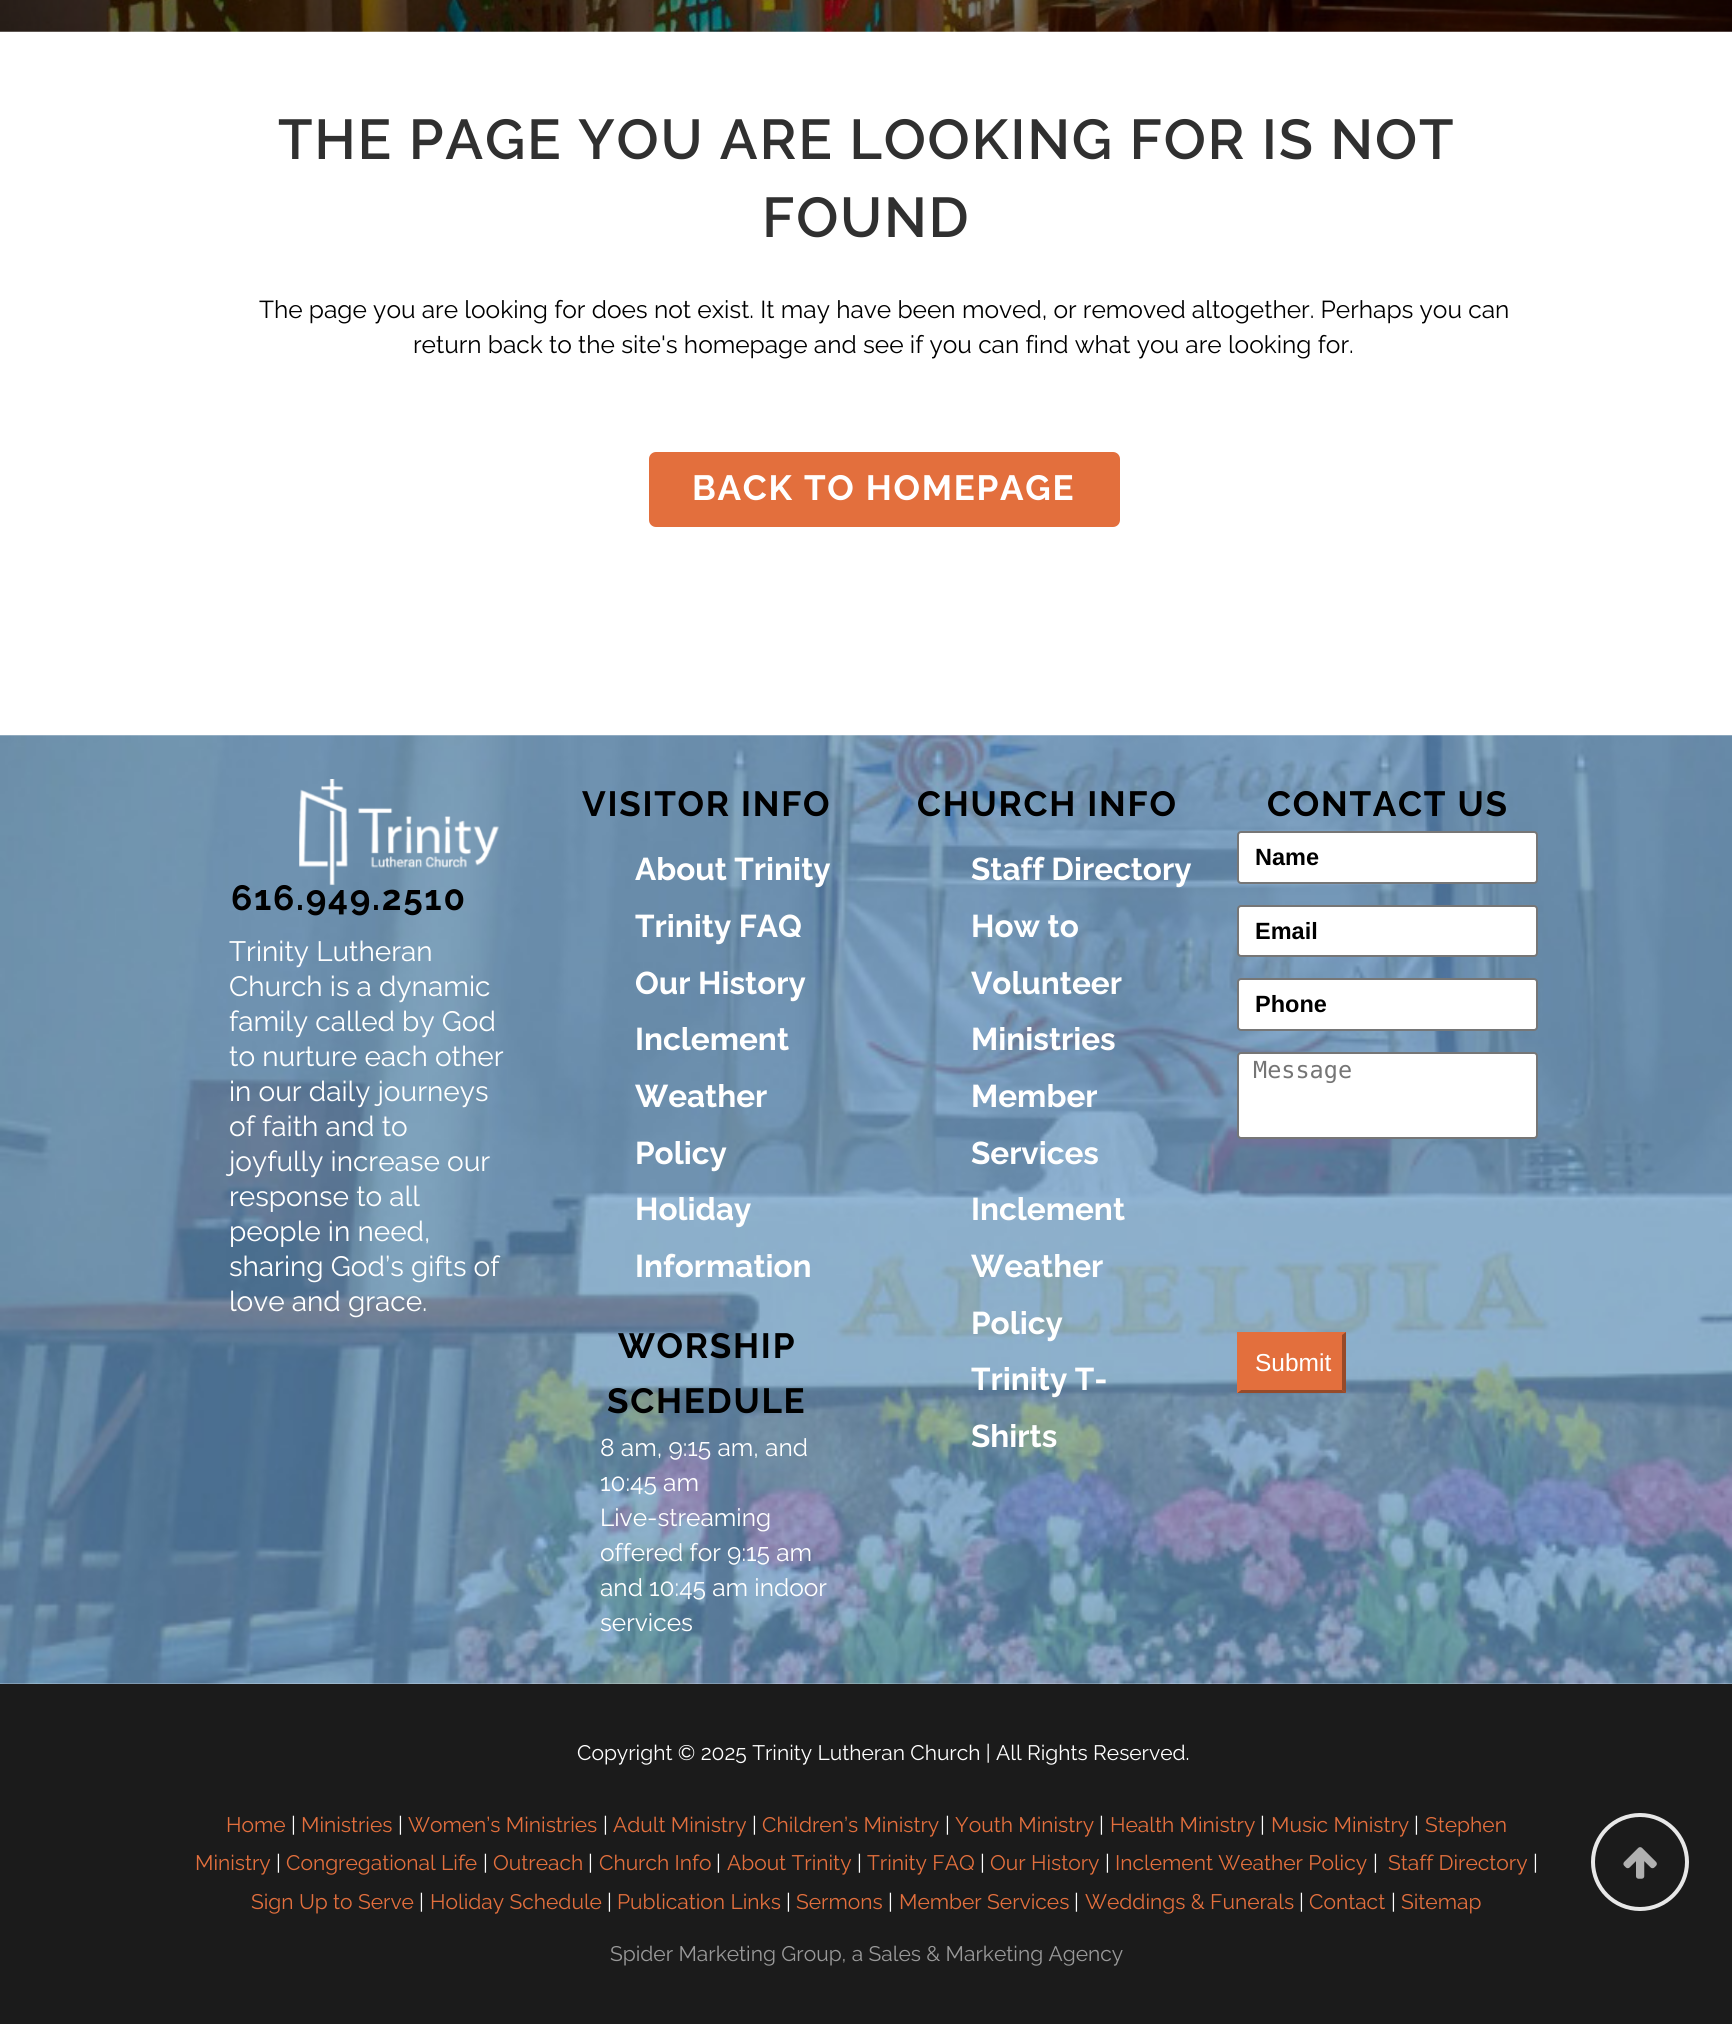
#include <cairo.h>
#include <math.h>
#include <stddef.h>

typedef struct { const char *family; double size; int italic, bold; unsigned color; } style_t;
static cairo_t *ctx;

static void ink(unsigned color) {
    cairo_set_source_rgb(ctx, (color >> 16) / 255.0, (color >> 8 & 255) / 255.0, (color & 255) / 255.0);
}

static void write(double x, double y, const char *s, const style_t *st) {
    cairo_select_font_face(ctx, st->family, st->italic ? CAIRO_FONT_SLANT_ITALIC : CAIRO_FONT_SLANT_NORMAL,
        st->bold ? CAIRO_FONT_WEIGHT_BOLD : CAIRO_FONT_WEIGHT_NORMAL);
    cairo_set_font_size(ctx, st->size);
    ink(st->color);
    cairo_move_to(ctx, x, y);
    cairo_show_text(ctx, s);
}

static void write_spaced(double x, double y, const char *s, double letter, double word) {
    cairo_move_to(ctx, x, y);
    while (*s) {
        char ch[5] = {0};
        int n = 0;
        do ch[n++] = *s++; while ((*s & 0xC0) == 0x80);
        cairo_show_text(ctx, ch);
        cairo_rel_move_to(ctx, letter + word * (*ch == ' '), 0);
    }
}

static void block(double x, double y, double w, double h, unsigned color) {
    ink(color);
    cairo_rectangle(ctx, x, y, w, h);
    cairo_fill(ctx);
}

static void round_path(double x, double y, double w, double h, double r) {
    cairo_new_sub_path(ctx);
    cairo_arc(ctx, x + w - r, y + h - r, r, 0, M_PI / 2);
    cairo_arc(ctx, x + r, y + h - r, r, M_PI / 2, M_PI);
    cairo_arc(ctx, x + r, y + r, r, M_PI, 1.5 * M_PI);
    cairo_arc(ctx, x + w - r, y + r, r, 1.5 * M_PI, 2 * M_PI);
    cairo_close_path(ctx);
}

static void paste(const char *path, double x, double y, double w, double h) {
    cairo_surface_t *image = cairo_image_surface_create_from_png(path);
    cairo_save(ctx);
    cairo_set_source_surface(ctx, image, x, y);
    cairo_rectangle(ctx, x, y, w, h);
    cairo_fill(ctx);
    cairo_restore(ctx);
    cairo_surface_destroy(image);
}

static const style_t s1 = {"Raleway", 24.5, 0, 0, 0x000000};
static const style_t s2 = {"Raleway", 28, 0, 0, 0xffffff};
static const style_t s3 = {"Raleway", 31.5, 0, 1, 0xffffff};
static const style_t s4 = {"Raleway", 24.5, 0, 0, 0xffffff};
static const style_t s5 = {"Liberation Sans", 23.5, 0, 1, 0x000000};
static const style_t s6 = {"DejaVu Sans Mono", 23.5, 0, 0, 0x757575};
static const style_t s7 = {"Liberation Sans", 24.5, 0, 0, 0xffffff};
static const style_t s8 = {"Raleway", 21, 0, 0, 0xffffff};
static const style_t s9 = {"Raleway", 21, 0, 0, 0xe36f3d};
static const style_t s10 = {"Raleway", 21, 0, 0, 0x999999};

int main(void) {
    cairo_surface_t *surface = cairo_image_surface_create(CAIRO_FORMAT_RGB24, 1732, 2024);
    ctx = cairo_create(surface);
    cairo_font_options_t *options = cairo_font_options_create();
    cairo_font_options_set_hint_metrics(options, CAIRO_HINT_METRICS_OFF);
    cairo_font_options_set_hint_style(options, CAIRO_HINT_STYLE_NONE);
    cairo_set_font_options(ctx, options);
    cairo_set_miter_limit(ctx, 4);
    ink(0xffffff);
    cairo_paint(ctx);
    paste("pic1.png", 0, 0, 1732, 32);
    cairo_select_font_face(ctx, "Raleway SemiBold", CAIRO_FONT_SLANT_NORMAL, CAIRO_FONT_WEIGHT_NORMAL);
    cairo_set_font_size(ctx, 56);
    ink(0x303030);
    write_spaced(278, 159, "THE PAGE YOU ARE LOOKING FOR IS NOT", 1.75, 0);
    write_spaced(762, 237, "FOUND", 1.75, 0);
    write(259, 318, "The page you are looking for does not exist. It may have been moved, or removed altogether. Perhaps you can", &s1);
    write(413, 353, "return back to the site's homepage and see if you can find what you are looking for.", &s1);
    ink(0xe36f3d);
    round_path(651, 454, 467, 71, 5);
    cairo_fill_preserve(ctx);
    cairo_set_line_width(ctx, 4);
    cairo_stroke(ctx);
    cairo_select_font_face(ctx, "Raleway", CAIRO_FONT_SLANT_NORMAL, CAIRO_FONT_WEIGHT_BOLD);
    cairo_set_font_size(ctx, 35);
    ink(0xffffff);
    write_spaced(692, 500, "BACK TO HOMEPAGE", 1.75, 0);
    paste("pic2.png", 0, 735, 1732, 949);
    paste("pic3.png", 299, 779, 200, 107);
    ink(0x000000);
    write_spaced(231, 910, "616.949.2510", 1.75, 0);
    write(229, 961, "Trinity Lutheran", &s2);
    write(229, 996, "Church is a dynamic", &s2);
    write(229, 1031, "family called by God", &s2);
    write(229, 1066, "to nurture each other", &s2);
    write(229, 1101, "in our daily journeys", &s2);
    write(229, 1136, "of faith and to", &s2);
    write(229, 1171, "joyfully increase our", &s2);
    write(229, 1206, "response to all", &s2);
    write(229, 1241, "people in need,", &s2);
    write(229, 1276, "sharing God’s gifts of", &s2);
    write(229, 1311, "love and grace.", &s2);
    cairo_select_font_face(ctx, "Raleway", CAIRO_FONT_SLANT_NORMAL, CAIRO_FONT_WEIGHT_BOLD);
    cairo_set_font_size(ctx, 35);
    ink(0x000000);
    write_spaced(582, 816, "VISITOR INFO", 1.75, 0);
    write(635, 880, "About Trinity", &s3);
    write(635, 937, "Trinity FAQ", &s3);
    write(635, 994, "Our History", &s3);
    write(635, 1050, "Inclement", &s3);
    write(635, 1107, "Weather", &s3);
    write(635, 1164, "Policy", &s3);
    write(635, 1220, "Holiday", &s3);
    write(635, 1277, "Information", &s3);
    cairo_set_font_size(ctx, 35);
    ink(0x000000);
    write_spaced(618, 1358, "WORSHIP", 1.75, 0);
    write_spaced(607, 1413, "SCHEDULE", 1.75, 0);
    write(600, 1456, "8 am, 9:15 am, and", &s4);
    write(600, 1491, "10:45 am", &s4);
    write(600, 1526, "Live-streaming", &s4);
    write(600, 1561, "offered for 9:15 am", &s4);
    write(600, 1596, "and 10:45 am indoor", &s4);
    write(600, 1631, "services", &s4);
    cairo_select_font_face(ctx, "Raleway", CAIRO_FONT_SLANT_NORMAL, CAIRO_FONT_WEIGHT_BOLD);
    cairo_set_font_size(ctx, 35);
    ink(0x000000);
    write_spaced(917, 816, "CHURCH INFO", 1.75, 0);
    write(971, 880, "Staff Directory", &s3);
    write(971, 937, "How to", &s3);
    write(971, 994, "Volunteer", &s3);
    write(971, 1050, "Ministries", &s3);
    write(971, 1107, "Member", &s3);
    write(971, 1164, "Services", &s3);
    write(971, 1220, "Inclement", &s3);
    write(971, 1277, "Weather", &s3);
    write(971, 1334, "Policy", &s3);
    write(971, 1390, "Trinity T-", &s3);
    write(971, 1447, "Shirts", &s3);
    cairo_set_font_size(ctx, 35);
    ink(0x000000);
    write_spaced(1267, 816, "CONTACT US", 1.75, 0);
    ink(0xffffff);
    round_path(1238, 832, 299, 51, 3);
    cairo_fill_preserve(ctx);
    ink(0x767676);
    cairo_set_line_width(ctx, 2);
    cairo_stroke(ctx);
    write(1255, 865, "Name", &s5);
    ink(0xffffff);
    round_path(1238, 906, 299, 50, 3);
    cairo_fill_preserve(ctx);
    ink(0x767676);
    cairo_stroke(ctx);
    write(1255, 939, "Email", &s5);
    ink(0xffffff);
    round_path(1238, 979, 299, 51, 3);
    cairo_fill_preserve(ctx);
    ink(0x767676);
    cairo_stroke(ctx);
    write(1255, 1012, "Phone", &s5);
    ink(0xffffff);
    round_path(1238, 1053, 299, 85, 3);
    cairo_fill_preserve(ctx);
    ink(0x767676);
    cairo_stroke(ctx);
    write(1253, 1078, "Message", &s6);
    block(1237, 1332, 109, 61, 0xe36f3d);
    ink(0x974a29);
    cairo_new_path(ctx);
    cairo_move_to(ctx, 1346, 1332);
    cairo_line_to(ctx, 1346, 1393);
    cairo_line_to(ctx, 1342, 1390);
    cairo_line_to(ctx, 1342, 1335);
    cairo_close_path(ctx);
    cairo_fill(ctx);
    cairo_new_path(ctx);
    cairo_move_to(ctx, 1346, 1393);
    cairo_line_to(ctx, 1237, 1393);
    cairo_line_to(ctx, 1241, 1390);
    cairo_line_to(ctx, 1342, 1390);
    cairo_close_path(ctx);
    cairo_fill(ctx);
    ink(0xe36f3d);
    cairo_new_path(ctx);
    cairo_move_to(ctx, 1237, 1393);
    cairo_line_to(ctx, 1237, 1332);
    cairo_line_to(ctx, 1241, 1335);
    cairo_line_to(ctx, 1241, 1390);
    cairo_close_path(ctx);
    cairo_fill(ctx);
    write(1255, 1371, "Submit", &s7);
    block(0, 1684, 1732, 340, 0x1b1b1b);
    write(577, 1760, "Copyright © 2025 Trinity Lutheran Church | All Rights Reserved.", &s8);
    write(226, 1832, "Home", &s9);
    write(291, 1832, "|", &s8);
    write(301, 1832, "Ministries", &s9);
    write(398, 1832, "|", &s8);
    write(408, 1832, "Women’s Ministries", &s9);
    write(603, 1832, "|", &s8);
    write(613, 1832, "Adult Ministry", &s9);
    write(752, 1832, "|", &s8);
    write(762, 1832, "Children’s Ministry", &s9);
    write(945, 1832, "|", &s8);
    write(955, 1832, "Youth Ministry", &s9);
    write(1099, 1832, "|", &s8);
    write(1110, 1832, "Health Ministry", &s9);
    write(1260, 1832, "|", &s8);
    write(1271, 1832, "Music Ministry", &s9);
    write(1414, 1832, "|", &s8);
    write(1425, 1832, "Stephen", &s9);
    write(195, 1870, "Ministry", &s9);
    write(276, 1870, "|", &s8);
    write(286, 1870, "Congregational Life", &s9);
    write(483, 1870, "|", &s8);
    write(493, 1870, "Outreach", &s9);
    write(588, 1870, "|", &s8);
    write(599, 1870, "Church Info", &s9);
    write(716, 1870, "|", &s8);
    write(727, 1870, "About Trinity", &s9);
    write(857, 1870, "|", &s8);
    write(867, 1870, "Trinity FAQ", &s9);
    write(980, 1870, "|", &s8);
    write(990, 1870, "Our History", &s9);
    write(1105, 1870, "|", &s8);
    write(1115, 1870, "Inclement Weather Policy", &s9);
    write(1373, 1870, "|", &s8);
    write(1388, 1870, "Staff Directory", &s9);
    write(1533, 1870, "|", &s8);
    write(251, 1909, "Sign Up to Serve", &s9);
    write(419, 1909, "|", &s8);
    write(430, 1909, "Holiday Schedule", &s9);
    write(607, 1909, "|", &s8);
    write(617, 1909, "Publication Links", &s9);
    write(786, 1909, "|", &s8);
    write(796, 1909, "Sermons", &s9);
    write(888, 1909, "|", &s8);
    write(899, 1909, "Member Services", &s9);
    write(1074, 1909, "|", &s8);
    write(1085, 1909, "Weddings & Funerals", &s9);
    write(1299, 1909, "|", &s8);
    write(1309, 1909, "Contact", &s9);
    write(1391, 1909, "|", &s8);
    write(1401, 1909, "Sitemap", &s9);
    write(610, 1961, "Spider Marketing Group, a Sales & Marketing Agency", &s10);
    cairo_new_path(ctx);
    cairo_arc(ctx, 1640, 1862, 47, 0, 2 * M_PI);
    ink(0xe8e8e8);
    cairo_set_line_width(ctx, 4);
    cairo_stroke(ctx);
    paste("pic4.png", 1623, 1847, 34, 32);
    cairo_surface_write_to_png(surface, "screenshot.png");
    cairo_font_options_destroy(options);
    cairo_destroy(ctx);
    cairo_surface_destroy(surface);
    return 0;
}
